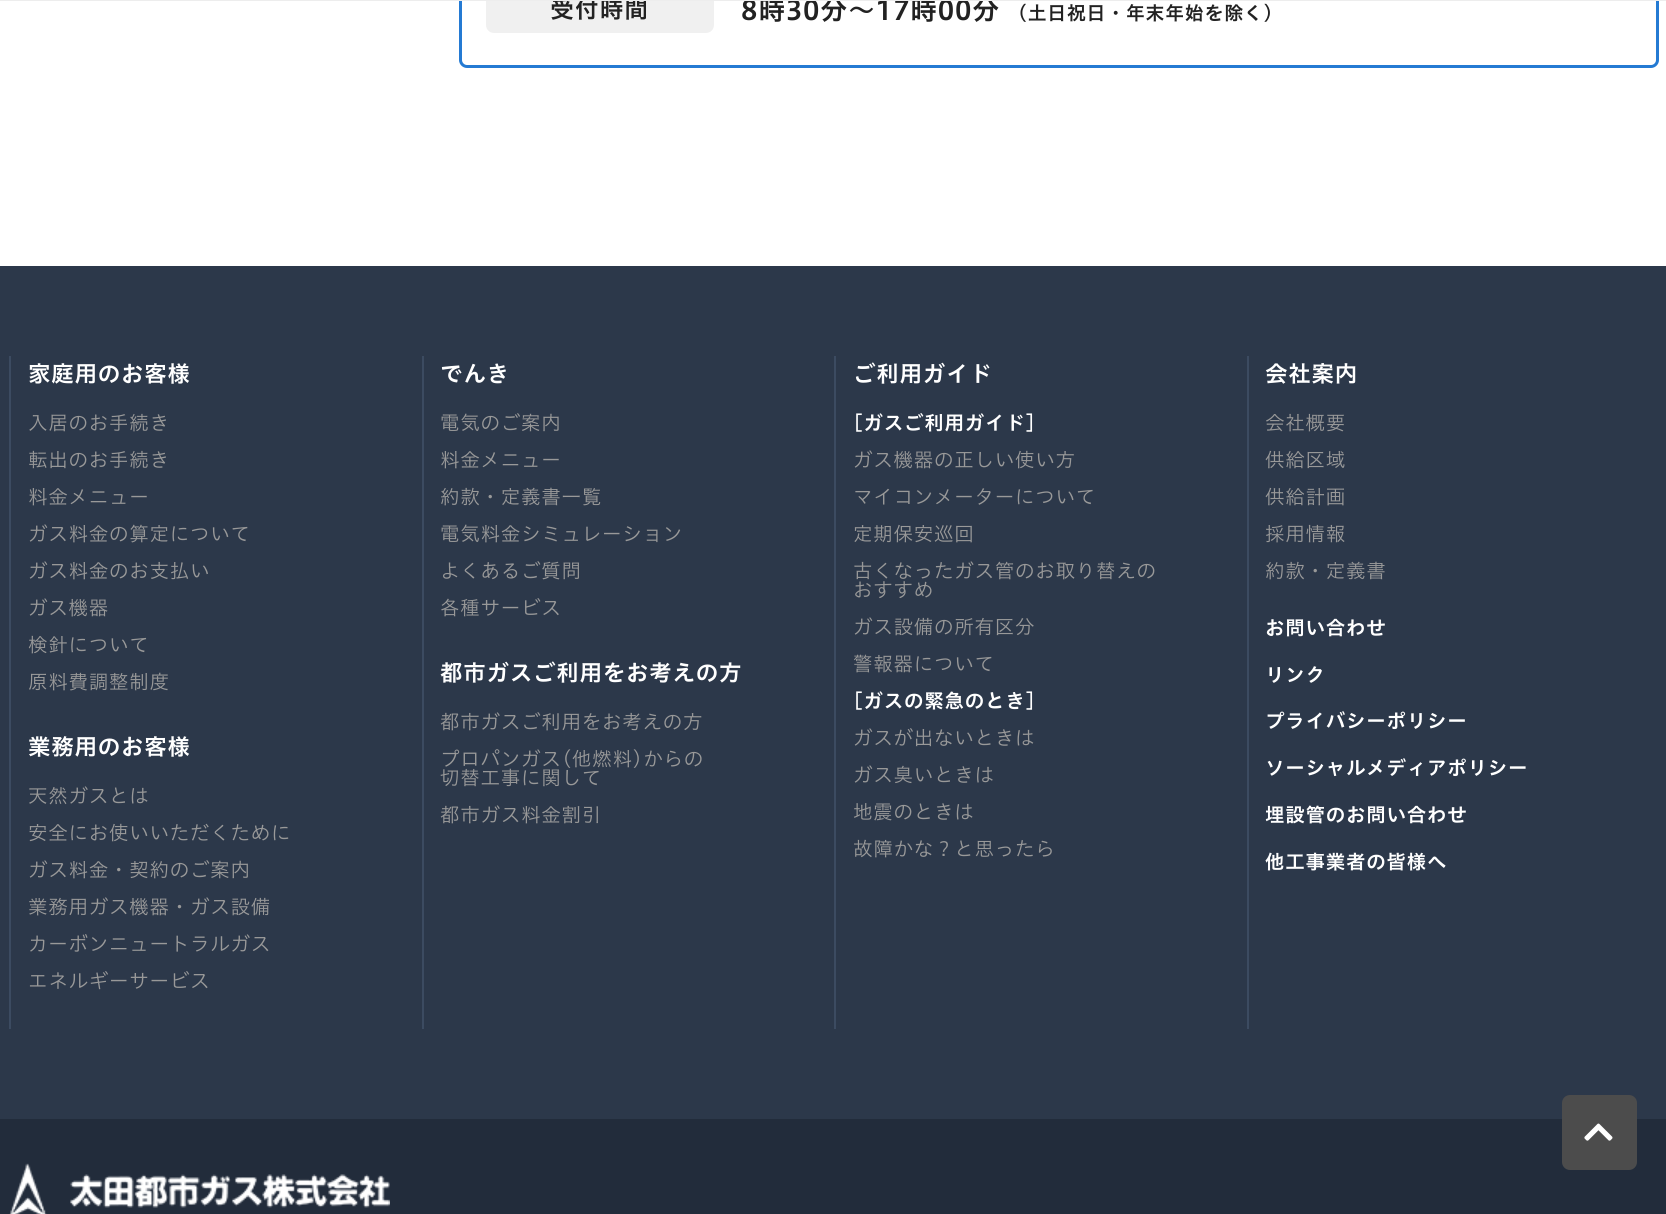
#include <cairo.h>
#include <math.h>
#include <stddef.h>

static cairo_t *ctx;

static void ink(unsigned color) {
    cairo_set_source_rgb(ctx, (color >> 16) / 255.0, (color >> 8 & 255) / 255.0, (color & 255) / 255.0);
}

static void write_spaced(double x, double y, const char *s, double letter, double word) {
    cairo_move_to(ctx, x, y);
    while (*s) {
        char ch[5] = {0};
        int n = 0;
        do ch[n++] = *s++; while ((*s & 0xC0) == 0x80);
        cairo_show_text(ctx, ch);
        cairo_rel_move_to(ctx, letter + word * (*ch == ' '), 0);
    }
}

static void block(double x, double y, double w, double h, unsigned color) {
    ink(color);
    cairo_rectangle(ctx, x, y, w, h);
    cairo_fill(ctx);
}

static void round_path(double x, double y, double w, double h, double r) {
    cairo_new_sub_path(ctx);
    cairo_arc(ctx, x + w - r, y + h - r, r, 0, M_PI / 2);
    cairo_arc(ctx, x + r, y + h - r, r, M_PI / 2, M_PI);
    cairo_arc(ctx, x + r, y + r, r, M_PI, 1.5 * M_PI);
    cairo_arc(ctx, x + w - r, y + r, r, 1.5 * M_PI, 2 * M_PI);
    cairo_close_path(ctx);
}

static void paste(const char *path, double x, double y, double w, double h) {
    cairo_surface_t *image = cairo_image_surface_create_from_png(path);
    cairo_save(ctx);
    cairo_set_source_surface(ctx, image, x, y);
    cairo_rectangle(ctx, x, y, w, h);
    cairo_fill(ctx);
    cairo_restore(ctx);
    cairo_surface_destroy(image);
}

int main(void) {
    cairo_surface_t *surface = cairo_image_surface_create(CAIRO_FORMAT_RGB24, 1666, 1214);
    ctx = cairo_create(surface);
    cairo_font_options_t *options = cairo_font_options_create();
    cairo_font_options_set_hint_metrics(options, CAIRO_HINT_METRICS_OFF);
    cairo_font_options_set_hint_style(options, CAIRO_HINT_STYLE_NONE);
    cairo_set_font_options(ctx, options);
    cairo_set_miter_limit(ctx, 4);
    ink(0xffffff);
    cairo_paint(ctx);
    cairo_new_path(ctx);
    cairo_move_to(ctx, 460.5, -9.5);
    cairo_line_to(ctx, 1657.5, -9.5);
    cairo_line_to(ctx, 1657.5, 60);
    cairo_curve_to(ctx, 1657.5, 63.5, 1654.5, 66.5, 1651, 66.5);
    cairo_line_to(ctx, 467, 66.5);
    cairo_curve_to(ctx, 463.5, 66.5, 460.5, 63.5, 460.5, 60);
    cairo_close_path(ctx);
    ink(0x247ad3);
    cairo_set_line_width(ctx, 3);
    cairo_stroke(ctx);
    ink(0xf0f0f0);
    round_path(486, -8, 228, 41, 8);
    cairo_fill(ctx);
    cairo_select_font_face(ctx, "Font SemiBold", CAIRO_FONT_SLANT_NORMAL, CAIRO_FONT_WEIGHT_NORMAL);
    cairo_set_font_size(ctx, 24);
    ink(0x222222);
    write_spaced(550, 18, "受付時間", 0.75, 0);
    cairo_set_font_size(ctx, 27);
    write_spaced(741, 20, "8時30分～17時00分", 0.75, 0);
    block(0, 0, 1666, 1, 0xededed);
    cairo_set_font_size(ctx, 18.9);
    ink(0x222222);
    write_spaced(1008, 20, "（土日祝日・年末年始を除く）", 0.75, 0);
    block(0, 266, 1666, 853, 0x2c384a);
    block(9, 356, 2, 673, 0x3c4b61);
    cairo_set_font_size(ctx, 22.5);
    ink(0xffffff);
    write_spaced(28, 382, "家庭用のお客様", 0.75, 0);
    cairo_select_font_face(ctx, "Font Light", CAIRO_FONT_SLANT_NORMAL, CAIRO_FONT_WEIGHT_NORMAL);
    cairo_set_font_size(ctx, 19.5);
    ink(0x999999);
    write_spaced(28, 430, "入居のお手続き", 0.75, 0);
    write_spaced(28, 467, "転出のお手続き", 0.75, 0);
    write_spaced(28, 504, "料金メニュー", 0.75, 0);
    write_spaced(28, 541, "ガス料金の算定について", 0.75, 0);
    write_spaced(28, 578, "ガス料金のお支払い", 0.75, 0);
    write_spaced(28, 615, "ガス機器", 0.75, 0);
    write_spaced(28, 652, "検針について", 0.75, 0);
    write_spaced(28, 689, "原料費調整制度", 0.75, 0);
    cairo_select_font_face(ctx, "Font SemiBold", CAIRO_FONT_SLANT_NORMAL, CAIRO_FONT_WEIGHT_NORMAL);
    cairo_set_font_size(ctx, 22.5);
    ink(0xffffff);
    write_spaced(28, 755, "業務用のお客様", 0.75, 0);
    cairo_select_font_face(ctx, "Font Light", CAIRO_FONT_SLANT_NORMAL, CAIRO_FONT_WEIGHT_NORMAL);
    cairo_set_font_size(ctx, 19.5);
    ink(0x999999);
    write_spaced(28, 803, "天然ガスとは", 0.75, 0);
    write_spaced(28, 840, "安全にお使いいただくために", 0.75, 0);
    write_spaced(28, 877, "ガス料金・契約のご案内", 0.75, 0);
    write_spaced(28, 914, "業務用ガス機器・ガス設備", 0.75, 0);
    write_spaced(28, 951, "カーボンニュートラルガス", 0.75, 0);
    write_spaced(28, 988, "エネルギーサービス", 0.75, 0);
    block(422, 356, 2, 673, 0x3c4b61);
    cairo_select_font_face(ctx, "Font SemiBold", CAIRO_FONT_SLANT_NORMAL, CAIRO_FONT_WEIGHT_NORMAL);
    cairo_set_font_size(ctx, 22.5);
    ink(0xffffff);
    write_spaced(440, 382, "でんき", 0.75, 0);
    cairo_select_font_face(ctx, "Font Light", CAIRO_FONT_SLANT_NORMAL, CAIRO_FONT_WEIGHT_NORMAL);
    cairo_set_font_size(ctx, 19.5);
    ink(0x999999);
    write_spaced(440, 430, "電気のご案内", 0.75, 0);
    write_spaced(440, 467, "料金メニュー", 0.75, 0);
    write_spaced(440, 504, "約款・定義書一覧", 0.75, 0);
    write_spaced(440, 541, "電気料金シミュレーション", 0.75, 0);
    write_spaced(440, 578, "よくあるご質問", 0.75, 0);
    write_spaced(440, 615, "各種サービス", 0.75, 0);
    cairo_select_font_face(ctx, "Font SemiBold", CAIRO_FONT_SLANT_NORMAL, CAIRO_FONT_WEIGHT_NORMAL);
    cairo_set_font_size(ctx, 22.5);
    ink(0xffffff);
    write_spaced(440, 681, "都市ガスご利用をお考えの方", 0.75, 0);
    cairo_select_font_face(ctx, "Font Light", CAIRO_FONT_SLANT_NORMAL, CAIRO_FONT_WEIGHT_NORMAL);
    cairo_set_font_size(ctx, 19.5);
    ink(0x999999);
    write_spaced(440, 729, "都市ガスご利用をお考えの方", 0.75, 0);
    write_spaced(440, 766, "プロパンガス(他燃料)からの", 0.75, 0);
    write_spaced(440, 785, "切替工事に関して", 0.75, 0);
    write_spaced(440, 822, "都市ガス料金割引", 0.75, 0);
    block(834, 356, 2, 673, 0x3c4b61);
    cairo_select_font_face(ctx, "Font SemiBold", CAIRO_FONT_SLANT_NORMAL, CAIRO_FONT_WEIGHT_NORMAL);
    cairo_set_font_size(ctx, 22.5);
    ink(0xffffff);
    write_spaced(853, 382, "ご利用ガイド", 0.75, 0);
    cairo_set_font_size(ctx, 19.5);
    write_spaced(853, 430, "[ガスご利用ガイド]", 0.75, 0);
    cairo_select_font_face(ctx, "Font Light", CAIRO_FONT_SLANT_NORMAL, CAIRO_FONT_WEIGHT_NORMAL);
    ink(0x999999);
    write_spaced(853, 467, "ガス機器の正しい使い方", 0.75, 0);
    write_spaced(853, 504, "マイコンメーターについて", 0.75, 0);
    write_spaced(853, 541, "定期保安巡回", 0.75, 0);
    write_spaced(853, 578, "古くなったガス管のお取り替えの", 0.75, 0);
    write_spaced(853, 597, "おすすめ", 0.75, 0);
    write_spaced(853, 634, "ガス設備の所有区分", 0.75, 0);
    write_spaced(853, 671, "警報器について", 0.75, 0);
    cairo_select_font_face(ctx, "Font SemiBold", CAIRO_FONT_SLANT_NORMAL, CAIRO_FONT_WEIGHT_NORMAL);
    ink(0xffffff);
    write_spaced(853, 708, "[ガスの緊急のとき]", 0.75, 0);
    cairo_select_font_face(ctx, "Font Light", CAIRO_FONT_SLANT_NORMAL, CAIRO_FONT_WEIGHT_NORMAL);
    ink(0x999999);
    write_spaced(853, 745, "ガスが出ないときは", 0.75, 0);
    write_spaced(853, 782, "ガス臭いときは", 0.75, 0);
    write_spaced(853, 819, "地震のときは", 0.75, 0);
    write_spaced(853, 856, "故障かな？と思ったら", 0.75, 0);
    block(1247, 356, 2, 673, 0x3c4b61);
    cairo_select_font_face(ctx, "Font SemiBold", CAIRO_FONT_SLANT_NORMAL, CAIRO_FONT_WEIGHT_NORMAL);
    cairo_set_font_size(ctx, 22.5);
    ink(0xffffff);
    write_spaced(1265, 382, "会社案内", 0.75, 0);
    cairo_select_font_face(ctx, "Font Light", CAIRO_FONT_SLANT_NORMAL, CAIRO_FONT_WEIGHT_NORMAL);
    cairo_set_font_size(ctx, 19.5);
    ink(0x999999);
    write_spaced(1265, 430, "会社概要", 0.75, 0);
    write_spaced(1265, 467, "供給区域", 0.75, 0);
    write_spaced(1265, 504, "供給計画", 0.75, 0);
    write_spaced(1265, 541, "採用情報", 0.75, 0);
    write_spaced(1265, 578, "約款・定義書", 0.75, 0);
    cairo_select_font_face(ctx, "Font SemiBold", CAIRO_FONT_SLANT_NORMAL, CAIRO_FONT_WEIGHT_NORMAL);
    ink(0xffffff);
    write_spaced(1265, 635, "お問い合わせ", 0.75, 0);
    write_spaced(1265, 682, "リンク", 0.75, 0);
    write_spaced(1265, 728, "プライバシーポリシー", 0.75, 0);
    write_spaced(1265, 775, "ソーシャルメディアポリシー", 0.75, 0);
    write_spaced(1265, 822, "埋設管のお問い合わせ", 0.75, 0);
    write_spaced(1265, 869, "他工事業者の皆様へ", 0.75, 0);
    block(0, 1119, 1666, 95, 0x222c3b);
    ink(0x4c4c4c);
    round_path(1562, 1095, 75, 75, 8);
    cairo_fill(ctx);
    paste("pic1.png", 1584, 1123, 29, 18);
    paste("pic2.png", 9, 1163, 381, 51);
    cairo_surface_write_to_png(surface, "screenshot.png");
    cairo_font_options_destroy(options);
    cairo_destroy(ctx);
    cairo_surface_destroy(surface);
    return 0;
}
